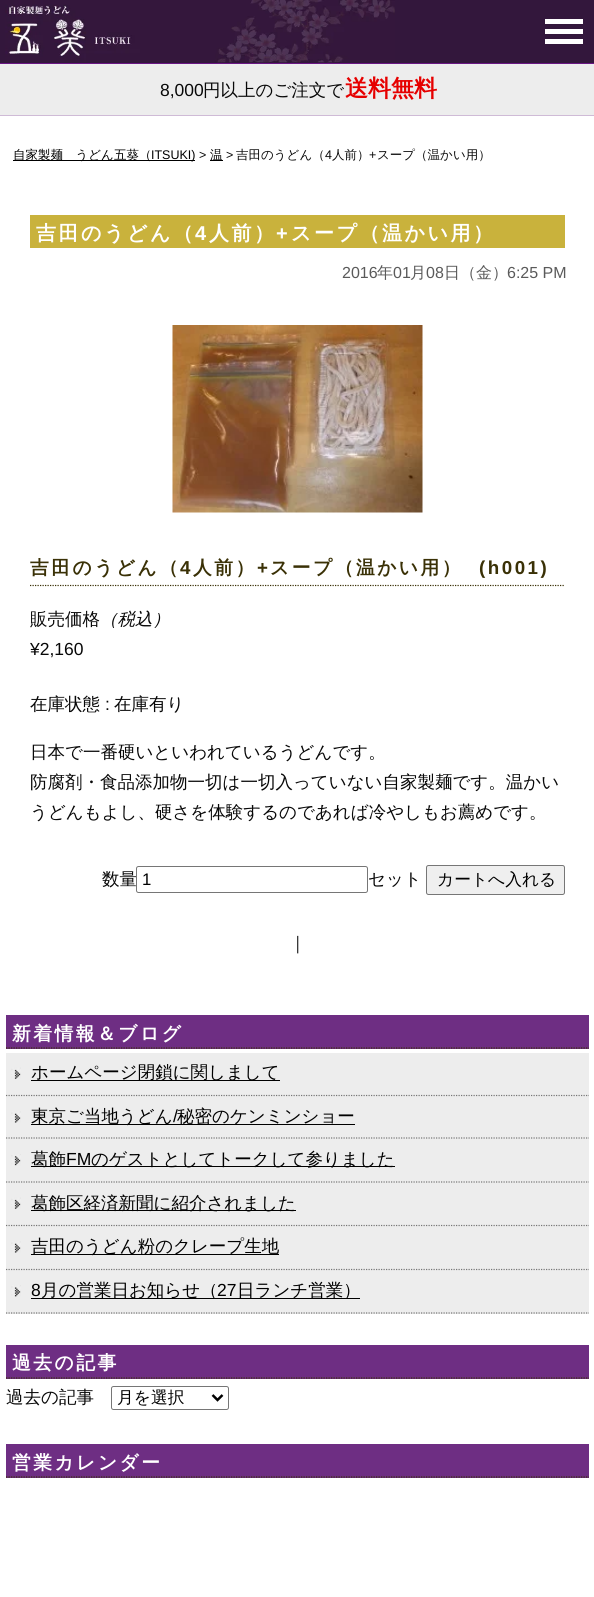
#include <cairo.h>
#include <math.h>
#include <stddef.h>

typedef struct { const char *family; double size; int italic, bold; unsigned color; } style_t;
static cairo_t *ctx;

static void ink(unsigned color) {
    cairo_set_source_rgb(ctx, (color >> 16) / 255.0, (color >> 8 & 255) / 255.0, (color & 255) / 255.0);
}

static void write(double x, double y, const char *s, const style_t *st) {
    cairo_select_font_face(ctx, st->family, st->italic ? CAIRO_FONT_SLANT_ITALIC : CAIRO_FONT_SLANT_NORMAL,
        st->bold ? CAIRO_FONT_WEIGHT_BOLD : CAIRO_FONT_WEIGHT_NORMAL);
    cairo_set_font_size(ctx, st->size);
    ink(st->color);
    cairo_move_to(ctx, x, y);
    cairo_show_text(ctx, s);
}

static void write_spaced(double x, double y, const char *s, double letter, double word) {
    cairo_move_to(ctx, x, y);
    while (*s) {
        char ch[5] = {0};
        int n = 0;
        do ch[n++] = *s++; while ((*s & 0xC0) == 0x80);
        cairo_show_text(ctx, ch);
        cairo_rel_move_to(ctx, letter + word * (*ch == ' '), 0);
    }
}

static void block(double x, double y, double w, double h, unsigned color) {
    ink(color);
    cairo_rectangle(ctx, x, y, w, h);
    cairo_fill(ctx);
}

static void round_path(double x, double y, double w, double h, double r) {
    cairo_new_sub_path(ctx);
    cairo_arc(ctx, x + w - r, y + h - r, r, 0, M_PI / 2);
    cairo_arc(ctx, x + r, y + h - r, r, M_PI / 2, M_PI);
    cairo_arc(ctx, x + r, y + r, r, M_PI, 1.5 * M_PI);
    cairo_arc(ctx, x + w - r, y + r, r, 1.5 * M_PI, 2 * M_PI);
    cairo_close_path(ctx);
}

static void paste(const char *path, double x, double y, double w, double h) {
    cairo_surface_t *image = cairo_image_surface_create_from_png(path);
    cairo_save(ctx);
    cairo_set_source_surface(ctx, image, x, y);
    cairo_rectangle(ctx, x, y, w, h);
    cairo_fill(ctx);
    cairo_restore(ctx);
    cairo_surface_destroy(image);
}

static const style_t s1 = {"Liberation Sans", 17.5, 0, 0, 0x080808};
static const style_t s2 = {"WenQuanYi Zen Hei Medium", 17.5, 0, 0, 0x080808};
static const style_t s3 = {"WenQuanYi Zen Hei", 23, 0, 1, 0xe60000};
static const style_t s4 = {"WenQuanYi Zen Hei Medium", 12.5, 0, 0, 0x000000};
static const style_t s5 = {"Liberation Sans", 12.5, 0, 0, 0x000000};
static const style_t s6 = {"Liberation Sans", 12.5, 0, 0, 0x080808};
static const style_t s7 = {"WenQuanYi Zen Hei Medium", 12.5, 0, 0, 0x080808};
static const style_t s8 = {"Liberation Sans", 16, 0, 0, 0x5a5a5a};
static const style_t s9 = {"WenQuanYi Zen Hei Medium", 16, 0, 0, 0x5a5a5a};
static const style_t s10 = {"WenQuanYi Zen Hei Medium", 17.5, 1, 0, 0x080808};
static const style_t s11 = {"Liberation Sans", 16.75, 0, 0, 0x000000};
static const style_t s12 = {"WenQuanYi Zen Hei Medium", 16.75, 0, 0, 0x000000};
static const style_t s13 = {"WenQuanYi Zen Hei Medium", 17.5, 0, 0, 0x000000};
static const style_t s14 = {"Liberation Sans", 17.5, 0, 0, 0x000000};

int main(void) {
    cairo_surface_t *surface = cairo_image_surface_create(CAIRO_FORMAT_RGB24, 594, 1597);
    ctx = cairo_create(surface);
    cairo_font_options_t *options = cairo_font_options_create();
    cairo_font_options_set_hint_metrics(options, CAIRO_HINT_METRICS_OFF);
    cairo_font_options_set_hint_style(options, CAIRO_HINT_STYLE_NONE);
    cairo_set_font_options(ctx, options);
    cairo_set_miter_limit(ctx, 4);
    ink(0xffffff);
    cairo_paint(ctx);
    block(0, 0, 594, 63, 0x33173c);
    block(0, 63, 594, 1, 0x691684);
    paste("pic1.png", 5, 0, 390, 63);
    block(545, 29, 38, 5, 0xffffff);
    block(545, 19, 38, 5, 0xffffff);
    block(545, 39, 38, 5, 0xffffff);
    block(0, 64, 594, 51, 0xededed);
    block(0, 115, 594, 1, 0xcfbbd6);
    write(160, 96, "8,000", &s1);
    write(203, 96, "円以上のご注文で", &s2);
    write(345, 96, "送料無料", &s3);
    block(13, 160, 182, 1, 0x000000);
    write(13, 159, "自家製麺　うどん五葵（", &s4);
    write(151, 159, "ITSUKI)", &s5);
    write(199, 159, ">", &s6);
    block(210, 160, 13, 1, 0x000000);
    write(210, 159, "温", &s4);
    write(226, 159, ">", &s6);
    write(236, 159, "吉田のうどん（", &s7);
    write(325, 159, "4", &s6);
    write(332, 159, "人前）", &s7);
    write(369, 159, "+", &s6);
    write(377, 159, "スープ（温かい用）", &s7);
    block(30, 215, 535, 33, 0xc9b23c);
    cairo_select_font_face(ctx, "WenQuanYi Zen Hei", CAIRO_FONT_SLANT_NORMAL, CAIRO_FONT_WEIGHT_BOLD);
    cairo_set_font_size(ctx, 20);
    ink(0xffffff);
    write_spaced(36, 240, "吉田のうどん（", 2.5, 0);
    cairo_select_font_face(ctx, "Liberation Sans", CAIRO_FONT_SLANT_NORMAL, CAIRO_FONT_WEIGHT_BOLD);
    write_spaced(195, 240, "4", 2.5, 0);
    cairo_select_font_face(ctx, "WenQuanYi Zen Hei", CAIRO_FONT_SLANT_NORMAL, CAIRO_FONT_WEIGHT_BOLD);
    write_spaced(209, 240, "人前）", 2.5, 0);
    cairo_select_font_face(ctx, "Liberation Sans", CAIRO_FONT_SLANT_NORMAL, CAIRO_FONT_WEIGHT_BOLD);
    write_spaced(276, 240, "+", 2.5, 0);
    cairo_select_font_face(ctx, "WenQuanYi Zen Hei", CAIRO_FONT_SLANT_NORMAL, CAIRO_FONT_WEIGHT_BOLD);
    write_spaced(291, 240, "スープ（温かい用）", 2.5, 0);
    write(342, 278, "2016", &s8);
    write(377, 278, "年", &s9);
    write(393, 278, "01", &s8);
    write(410, 278, "月", &s9);
    write(426, 278, "08", &s8);
    write(444, 278, "日（金）", &s9);
    write(507, 278, "6:25 PM", &s8);
    paste("pic2.png", 172, 325, 251, 188);
    cairo_new_path(ctx);
    cairo_move_to(ctx, 30, 585.5);
    cairo_line_to(ctx, 565, 585.5);
    ink(0x3a3106);
    cairo_set_line_width(ctx, 1.2);
    cairo_set_dash(ctx, (double[]){1.25, 1.25}, 2, 0);
    cairo_stroke(ctx);
    cairo_select_font_face(ctx, "WenQuanYi Zen Hei", CAIRO_FONT_SLANT_NORMAL, CAIRO_FONT_WEIGHT_BOLD);
    cairo_set_font_size(ctx, 18.75);
    write_spaced(30, 574, "吉田のうどん（", 2.5, 0);
    cairo_select_font_face(ctx, "Liberation Sans", CAIRO_FONT_SLANT_NORMAL, CAIRO_FONT_WEIGHT_BOLD);
    write_spaced(180, 574, "4", 2.5, 0);
    cairo_select_font_face(ctx, "WenQuanYi Zen Hei", CAIRO_FONT_SLANT_NORMAL, CAIRO_FONT_WEIGHT_BOLD);
    write_spaced(193, 574, "人前）", 2.5, 0);
    cairo_select_font_face(ctx, "Liberation Sans", CAIRO_FONT_SLANT_NORMAL, CAIRO_FONT_WEIGHT_BOLD);
    write_spaced(257, 574, "+", 2.5, 0);
    cairo_select_font_face(ctx, "WenQuanYi Zen Hei", CAIRO_FONT_SLANT_NORMAL, CAIRO_FONT_WEIGHT_BOLD);
    write_spaced(270, 574, "スープ（温かい用）", 2.5, 0);
    cairo_select_font_face(ctx, "Liberation Sans", CAIRO_FONT_SLANT_NORMAL, CAIRO_FONT_WEIGHT_BOLD);
    write_spaced(479, 574, "(h001)", 2.5, 0);
    write(30, 625, "販売価格", &s2);
    write(100, 625, "（税込）", &s10);
    write(30, 655, "¥2,160", &s1);
    write(30, 710, "在庫状態", &s2);
    write(105, 710, ":", &s1);
    write(114, 710, "在庫有り", &s2);
    write(30, 758, "日本で一番硬いといわれているうどんです。", &s2);
    write(30, 788, "防腐剤・食品添加物一切は一切入っていない自家製麺です。温かい", &s2);
    write(30, 818, "うどんもよし、硬さを体験するのであれば冷やしもお薦めです。", &s2);
    write(102, 885, "数量", &s2);
    ink(0xffffff);
    round_path(136.5, 866.5, 231, 26, 2);
    cairo_fill_preserve(ctx);
    ink(0x767676);
    cairo_set_line_width(ctx, 1);
    cairo_set_dash(ctx, NULL, 0, 0);
    cairo_stroke(ctx);
    write(142, 885, "1", &s11);
    write(368, 885, "セット", &s2);
    ink(0xefefef);
    round_path(426.5, 865.5, 138, 29, 2);
    cairo_fill_preserve(ctx);
    ink(0x767676);
    cairo_stroke(ctx);
    write(437, 885, "カートへ入れる", &s12);
    write(289, 949, "｜", &s2);
    block(6, 1015, 583, 34, 0x6e2e83);
    cairo_new_path(ctx);
    cairo_move_to(ctx, 6, 1048);
    cairo_line_to(ctx, 589, 1048);
    ink(0x3a3106);
    cairo_set_line_width(ctx, 1.2);
    cairo_set_dash(ctx, (double[]){1.25, 1.25}, 2, 0);
    cairo_stroke(ctx);
    cairo_select_font_face(ctx, "WenQuanYi Zen Hei", CAIRO_FONT_SLANT_NORMAL, CAIRO_FONT_WEIGHT_BOLD);
    cairo_set_font_size(ctx, 18.75);
    ink(0xffffff);
    write_spaced(12, 1040, "新着情報＆ブログ", 2.5, 0);
    block(6, 1053, 583, 261, 0xededed);
    paste("pic3.png", 11, 1067, 10, 12);
    cairo_new_path(ctx);
    cairo_move_to(ctx, 6, 1095.5);
    cairo_line_to(ctx, 589, 1095.5);
    ink(0x767676);
    cairo_stroke(ctx);
    block(31, 1080, 249, 1, 0x000000);
    write(31, 1078, "ホームページ閉鎖に関しまして", &s13);
    paste("pic4.png", 11, 1111, 10, 12);
    cairo_new_path(ctx);
    cairo_move_to(ctx, 6, 1138);
    cairo_line_to(ctx, 589, 1138);
    ink(0x767676);
    cairo_stroke(ctx);
    block(31, 1124, 324, 1, 0x000000);
    write(31, 1122, "東京ご当地うどん", &s13);
    write(173, 1122, "/", &s14);
    write(177, 1122, "秘密のケンミンショー", &s13);
    paste("pic5.png", 11, 1154, 10, 12);
    cairo_new_path(ctx);
    cairo_move_to(ctx, 6, 1182);
    cairo_line_to(ctx, 589, 1182);
    ink(0x767676);
    cairo_stroke(ctx);
    block(31, 1166, 364, 1, 0x000000);
    write(31, 1165, "葛飾", &s13);
    write(66, 1165, "FM", &s14);
    write(91, 1165, "のゲストとしてトークして参りました", &s13);
    paste("pic3.png", 11, 1197, 10, 12);
    cairo_new_path(ctx);
    cairo_move_to(ctx, 6, 1225.5);
    cairo_line_to(ctx, 589, 1225.5);
    ink(0x767676);
    cairo_stroke(ctx);
    block(31, 1210, 265, 1, 0x000000);
    write(31, 1209, "葛飾区経済新聞に紹介されました", &s13);
    paste("pic4.png", 11, 1241, 10, 12);
    cairo_new_path(ctx);
    cairo_move_to(ctx, 6, 1269.5);
    cairo_line_to(ctx, 589, 1269.5);
    ink(0x767676);
    cairo_stroke(ctx);
    block(31, 1254, 248, 1, 0x000000);
    write(31, 1252, "吉田のうどん粉のクレープ生地", &s13);
    paste("pic6.png", 11, 1285, 10, 12);
    cairo_new_path(ctx);
    cairo_move_to(ctx, 6, 1313);
    cairo_line_to(ctx, 589, 1313);
    ink(0x767676);
    cairo_stroke(ctx);
    write(31, 1296, "8", &s14);
    block(31, 1298, 329, 1, 0x000000);
    write(41, 1296, "月の営業日お知らせ（", &s13);
    write(217, 1296, "27", &s14);
    write(237, 1296, "日ランチ営業）", &s13);
    block(6, 1345, 583, 34, 0x6e2e83);
    cairo_new_path(ctx);
    cairo_move_to(ctx, 6, 1378);
    cairo_line_to(ctx, 589, 1378);
    ink(0x3a3106);
    cairo_stroke(ctx);
    cairo_select_font_face(ctx, "WenQuanYi Zen Hei", CAIRO_FONT_SLANT_NORMAL, CAIRO_FONT_WEIGHT_BOLD);
    cairo_set_font_size(ctx, 18.75);
    ink(0xffffff);
    write_spaced(12, 1369, "過去の記事", 2.5, 0);
    write(6, 1403, "過去の記事", &s2);
    round_path(111.5, 1386.5, 117, 23, 2);
    ink(0x767676);
    cairo_set_line_width(ctx, 1);
    cairo_set_dash(ctx, NULL, 0, 0);
    cairo_stroke(ctx);
    cairo_new_path(ctx);
    cairo_move_to(ctx, 212.5, 1395);
    cairo_line_to(ctx, 217.5, 1400);
    cairo_line_to(ctx, 222.5, 1395);
    ink(0x000000);
    cairo_set_line_width(ctx, 2.5);
    cairo_stroke(ctx);
    write(117, 1403, "月を選択", &s12);
    block(6, 1444, 583, 34, 0x6e2e83);
    cairo_new_path(ctx);
    cairo_move_to(ctx, 6, 1477);
    cairo_line_to(ctx, 589, 1477);
    ink(0x3a3106);
    cairo_set_line_width(ctx, 1.2);
    cairo_set_dash(ctx, (double[]){1.25, 1.25}, 2, 0);
    cairo_stroke(ctx);
    cairo_select_font_face(ctx, "WenQuanYi Zen Hei", CAIRO_FONT_SLANT_NORMAL, CAIRO_FONT_WEIGHT_BOLD);
    cairo_set_font_size(ctx, 18.75);
    ink(0xffffff);
    write_spaced(12, 1469, "営業カレンダー", 2.5, 0);
    cairo_surface_write_to_png(surface, "screenshot.png");
    cairo_font_options_destroy(options);
    cairo_destroy(ctx);
    cairo_surface_destroy(surface);
    return 0;
}
